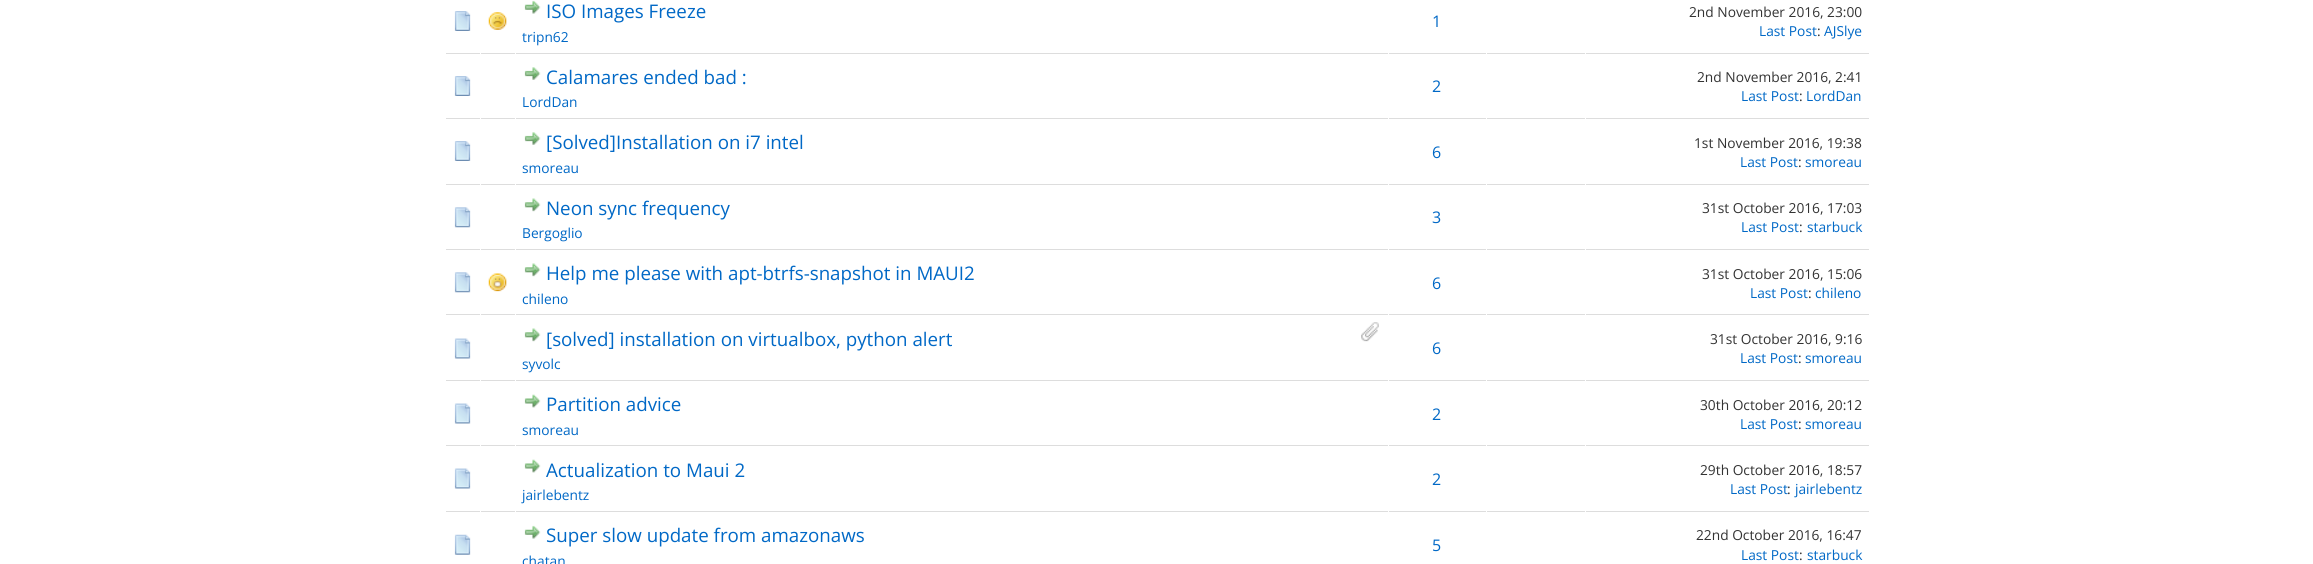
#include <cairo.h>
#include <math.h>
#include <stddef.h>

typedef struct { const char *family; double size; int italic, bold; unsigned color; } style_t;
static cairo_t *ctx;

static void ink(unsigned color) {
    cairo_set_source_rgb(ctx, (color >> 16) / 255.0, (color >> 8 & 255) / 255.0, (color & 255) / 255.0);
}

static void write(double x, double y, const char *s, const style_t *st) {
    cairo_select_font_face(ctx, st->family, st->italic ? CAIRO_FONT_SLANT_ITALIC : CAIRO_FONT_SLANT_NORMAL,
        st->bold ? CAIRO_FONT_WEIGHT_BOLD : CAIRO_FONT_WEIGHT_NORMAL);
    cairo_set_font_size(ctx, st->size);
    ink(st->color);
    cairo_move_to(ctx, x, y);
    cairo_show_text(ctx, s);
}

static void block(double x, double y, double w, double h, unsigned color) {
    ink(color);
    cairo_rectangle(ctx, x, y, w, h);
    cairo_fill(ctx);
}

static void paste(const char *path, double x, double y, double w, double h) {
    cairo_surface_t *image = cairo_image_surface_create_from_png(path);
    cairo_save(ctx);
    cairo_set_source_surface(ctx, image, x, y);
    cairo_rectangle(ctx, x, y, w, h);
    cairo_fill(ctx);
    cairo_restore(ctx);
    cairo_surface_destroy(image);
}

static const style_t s1 = {"Open Sans", 18.75, 0, 0, 0x0068c6};
static const style_t s2 = {"Open Sans", 13.75, 0, 0, 0x0068c6};
static const style_t s3 = {"Open Sans", 13.75, 0, 0, 0x333333};
static const style_t s4 = {"Open Sans", 16, 0, 0, 0x0068c6};

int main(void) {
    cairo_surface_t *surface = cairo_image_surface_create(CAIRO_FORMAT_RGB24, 2313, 564);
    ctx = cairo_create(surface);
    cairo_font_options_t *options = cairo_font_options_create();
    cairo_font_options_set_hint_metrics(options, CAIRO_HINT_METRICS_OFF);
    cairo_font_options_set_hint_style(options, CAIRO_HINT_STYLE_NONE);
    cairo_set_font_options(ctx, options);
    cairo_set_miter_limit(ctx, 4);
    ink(0xffffff);
    cairo_paint(ctx);
    block(446, 53, 1423, 1, 0xdddddd);
    block(515, 53, 1, 1, 0xffffff);
    paste("pic1.png", 524, 0, 17, 14);
    write(546, 18, "ISO Images Freeze", &s1);
    write(522, 42, "tripn62", &s2);
    block(1585, 53, 1, 1, 0xffffff);
    write(1689, 17, "2nd November 2016, 23:00", &s3);
    write(1759, 36, "Last Post", &s2);
    write(1817, 36, ":", &s3);
    write(1824, 36, "AJSlye", &s2);
    paste("pic2.png", 454, 11, 17, 20);
    block(480, 53, 1, 1, 0xffffff);
    paste("pic3.png", 488, 12, 19, 18);
    block(1388, 53, 1, 1, 0xffffff);
    write(1432, 27, "1", &s4);
    block(1486, 53, 1, 1, 0xffffff);
    block(446, 118, 1423, 1, 0xdddddd);
    block(515, 118, 1, 1, 0xffffff);
    paste("pic4.png", 524, 67, 17, 13);
    write(546, 84, "Calamares ended bad :", &s1);
    write(522, 107, "LordDan", &s2);
    block(1585, 118, 1, 1, 0xffffff);
    write(1697, 82, "2nd November 2016, 2:41", &s3);
    write(1741, 101, "Last Post", &s2);
    write(1799, 101, ":", &s3);
    write(1806, 101, "LordDan", &s2);
    paste("pic2.png", 454, 76, 17, 20);
    block(1388, 118, 1, 1, 0xffffff);
    write(1432, 92, "2", &s4);
    block(480, 118, 1, 1, 0xffffff);
    block(1486, 118, 1, 1, 0xffffff);
    block(446, 184, 1423, 1, 0xdddddd);
    block(515, 184, 1, 1, 0xffffff);
    paste("pic4.png", 524, 132, 17, 13);
    write(546, 149, "[Solved]Installation on i7 intel", &s1);
    write(522, 173, "smoreau", &s2);
    block(1585, 184, 1, 1, 0xffffff);
    write(1694, 148, "1st November 2016, 19:38", &s3);
    write(1740, 167, "Last Post", &s2);
    write(1798, 167, ":", &s3);
    write(1805, 167, "smoreau", &s2);
    paste("pic5.png", 454, 141, 17, 20);
    block(1388, 184, 1, 1, 0xffffff);
    write(1432, 158, "6", &s4);
    block(480, 184, 1, 1, 0xffffff);
    block(1486, 184, 1, 1, 0xffffff);
    block(446, 249, 1423, 1, 0xdddddd);
    block(515, 249, 1, 1, 0xffffff);
    paste("pic6.png", 524, 198, 17, 14);
    write(546, 215, "Neon sync frequency", &s1);
    write(522, 238, "Bergoglio", &s2);
    block(1585, 249, 1, 1, 0xffffff);
    write(1702, 213, "31st October 2016, 17:03", &s3);
    write(1741, 232, "Last Post", &s2);
    write(1799, 232, ":", &s3);
    write(1807, 232, "starbuck", &s2);
    paste("pic7.png", 454, 207, 17, 21);
    block(1388, 249, 1, 1, 0xffffff);
    write(1432, 223, "3", &s4);
    block(480, 249, 1, 1, 0xffffff);
    block(1486, 249, 1, 1, 0xffffff);
    block(446, 314, 1423, 1, 0xdddddd);
    block(515, 314, 1, 1, 0xffffff);
    paste("pic6.png", 524, 263, 17, 14);
    write(546, 280, "Help me please with apt-btrfs-snapshot in MAUI2", &s1);
    write(522, 304, "chileno", &s2);
    block(1585, 314, 1, 1, 0xffffff);
    write(1702, 279, "31st October 2016, 15:06", &s3);
    write(1750, 298, "Last Post", &s2);
    write(1808, 298, ":", &s3);
    write(1815, 298, "chileno", &s2);
    paste("pic7.png", 454, 272, 17, 21);
    block(480, 314, 1, 1, 0xffffff);
    paste("pic8.png", 488, 273, 19, 19);
    block(1388, 314, 1, 1, 0xffffff);
    write(1432, 289, "6", &s4);
    block(1486, 314, 1, 1, 0xffffff);
    block(446, 380, 1423, 1, 0xdddddd);
    block(515, 380, 1, 1, 0xffffff);
    paste("pic6.png", 524, 328, 17, 14);
    write(546, 346, "[solved] installation on virtualbox, python alert", &s1);
    write(522, 369, "syvolc", &s2);
    paste("pic9.png", 1361, 322, 18, 20);
    block(1585, 380, 1, 1, 0xffffff);
    write(1710, 344, "31st October 2016, 9:16", &s3);
    write(1740, 363, "Last Post", &s2);
    write(1798, 363, ":", &s3);
    write(1805, 363, "smoreau", &s2);
    paste("pic10.png", 454, 338, 17, 21);
    block(1388, 380, 1, 1, 0xffffff);
    write(1432, 354, "6", &s4);
    block(480, 380, 1, 1, 0xffffff);
    block(1486, 380, 1, 1, 0xffffff);
    block(446, 445, 1423, 1, 0xdddddd);
    block(515, 445, 1, 1, 0xffffff);
    paste("pic11.png", 524, 394, 17, 14);
    write(546, 411, "Partition advice", &s1);
    write(522, 435, "smoreau", &s2);
    block(1585, 445, 1, 1, 0xffffff);
    write(1700, 410, "30th October 2016, 20:12", &s3);
    write(1740, 429, "Last Post", &s2);
    write(1798, 429, ":", &s3);
    write(1805, 429, "smoreau", &s2);
    paste("pic10.png", 454, 403, 17, 21);
    block(1388, 445, 1, 1, 0xffffff);
    write(1432, 420, "2", &s4);
    block(480, 445, 1, 1, 0xffffff);
    block(1486, 445, 1, 1, 0xffffff);
    block(446, 511, 1423, 1, 0xdddddd);
    block(515, 511, 1, 2, 0xffffff);
    paste("pic11.png", 524, 459, 17, 14);
    write(546, 477, "Actualization to Maui 2", &s1);
    write(522, 500, "jairlebentz", &s2);
    block(1585, 511, 1, 2, 0xffffff);
    write(1700, 475, "29th October 2016, 18:57", &s3);
    write(1730, 494, "Last Post", &s2);
    write(1787, 494, ":", &s3);
    write(1795, 494, "jairlebentz", &s2);
    paste("pic10.png", 454, 468, 17, 21);
    block(1388, 511, 1, 2, 0xffffff);
    write(1432, 485, "2", &s4);
    block(480, 511, 1, 2, 0xffffff);
    block(1486, 511, 1, 2, 0xffffff);
    paste("pic12.png", 454, 534, 17, 21);
    paste("pic1.png", 524, 525, 17, 14);
    write(546, 542, "Super slow update from amazonaws", &s1);
    write(522, 566, "chatan", &s2);
    write(1432, 551, "5", &s4);
    write(1696, 540, "22nd October 2016, 16:47", &s3);
    write(1741, 560, "Last Post", &s2);
    write(1799, 560, ":", &s3);
    write(1807, 560, "starbuck", &s2);
    cairo_surface_write_to_png(surface, "screenshot.png");
    cairo_font_options_destroy(options);
    cairo_destroy(ctx);
    cairo_surface_destroy(surface);
    return 0;
}
